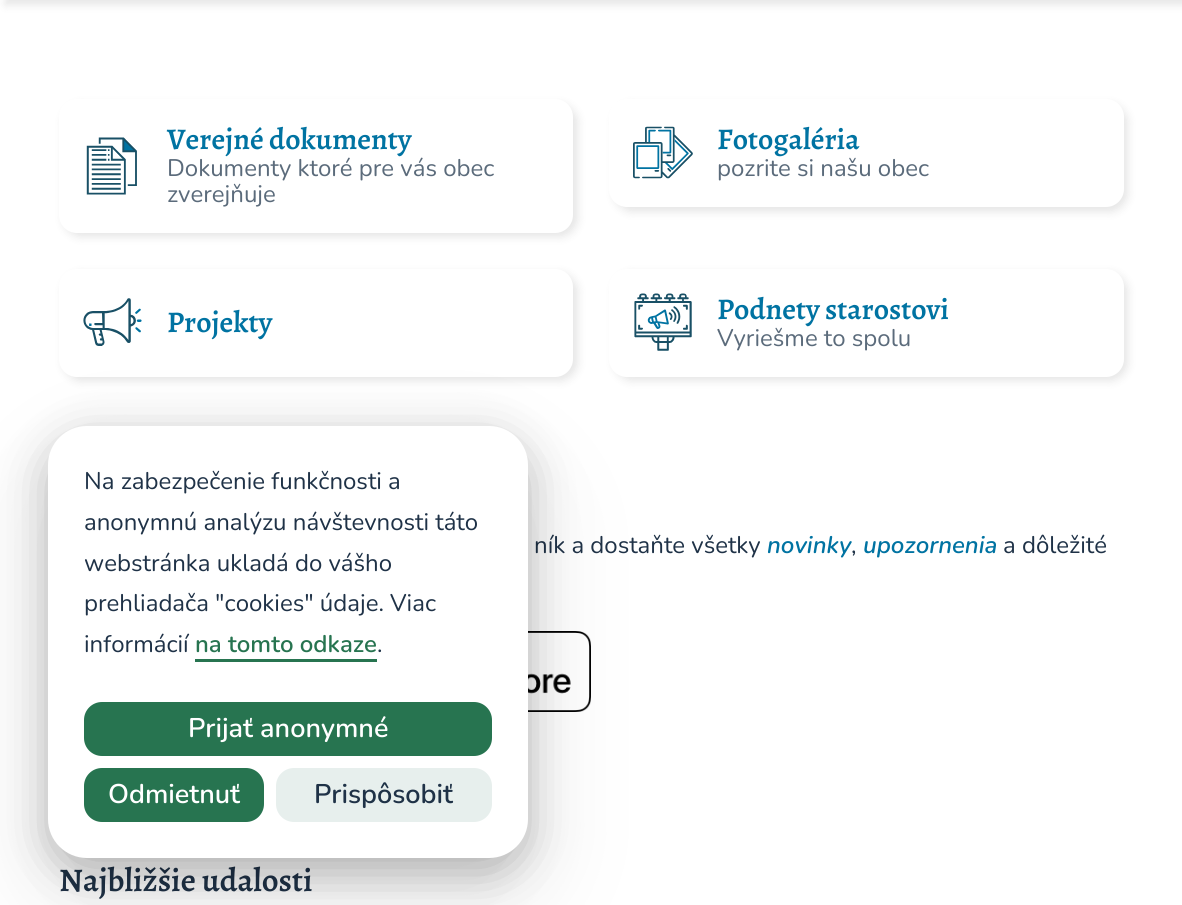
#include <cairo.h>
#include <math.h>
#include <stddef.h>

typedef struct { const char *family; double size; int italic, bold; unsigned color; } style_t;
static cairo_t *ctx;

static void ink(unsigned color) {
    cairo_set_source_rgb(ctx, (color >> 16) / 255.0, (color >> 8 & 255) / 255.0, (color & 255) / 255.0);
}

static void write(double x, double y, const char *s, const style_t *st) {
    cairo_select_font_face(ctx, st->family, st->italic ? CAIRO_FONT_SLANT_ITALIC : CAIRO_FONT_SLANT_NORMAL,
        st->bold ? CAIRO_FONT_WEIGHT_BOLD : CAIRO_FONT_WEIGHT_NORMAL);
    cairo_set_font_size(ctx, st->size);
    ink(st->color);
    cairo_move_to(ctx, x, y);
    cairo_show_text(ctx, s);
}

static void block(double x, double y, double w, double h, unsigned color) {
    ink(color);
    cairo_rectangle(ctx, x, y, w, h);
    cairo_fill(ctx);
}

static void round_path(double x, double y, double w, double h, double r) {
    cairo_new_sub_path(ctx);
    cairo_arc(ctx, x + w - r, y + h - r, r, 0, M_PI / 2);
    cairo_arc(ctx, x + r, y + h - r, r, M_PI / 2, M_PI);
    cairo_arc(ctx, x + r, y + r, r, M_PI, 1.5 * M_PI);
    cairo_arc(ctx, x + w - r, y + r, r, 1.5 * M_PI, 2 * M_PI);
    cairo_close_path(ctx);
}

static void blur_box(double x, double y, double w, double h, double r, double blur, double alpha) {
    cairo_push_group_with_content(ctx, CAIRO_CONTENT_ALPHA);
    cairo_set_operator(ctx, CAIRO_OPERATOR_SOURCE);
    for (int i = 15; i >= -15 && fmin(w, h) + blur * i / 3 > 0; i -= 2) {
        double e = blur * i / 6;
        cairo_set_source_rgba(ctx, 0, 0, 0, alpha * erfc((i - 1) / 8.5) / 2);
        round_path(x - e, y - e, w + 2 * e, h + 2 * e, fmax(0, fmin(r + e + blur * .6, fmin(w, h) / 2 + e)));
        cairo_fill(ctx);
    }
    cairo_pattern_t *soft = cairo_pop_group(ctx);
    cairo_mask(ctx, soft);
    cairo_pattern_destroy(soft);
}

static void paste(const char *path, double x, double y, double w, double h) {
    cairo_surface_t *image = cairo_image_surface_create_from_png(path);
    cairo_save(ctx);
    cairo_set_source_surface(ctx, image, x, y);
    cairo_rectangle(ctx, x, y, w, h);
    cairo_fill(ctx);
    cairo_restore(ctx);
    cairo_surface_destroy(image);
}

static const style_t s1 = {"Alegreya SemiBold", 30, 0, 0, 0x0073a2};
static const style_t s2 = {"Nunito", 24, 0, 0, 0x5b6b7b};
static const style_t s3 = {"Nunito", 24, 0, 0, 0x1f3247};
static const style_t s4 = {"Nunito SemiBold", 24, 1, 0, 0x0073a2};
static const style_t s5 = {"Alegreya SemiBold", 33, 0, 0, 0x1f3247};
static const style_t s6 = {"Nunito SemiBold", 24, 0, 0, 0x277450};
static const style_t s7 = {"Nunito SemiBold", 27, 0, 0, 0xffffff};
static const style_t s8 = {"Nunito SemiBold", 27, 0, 0, 0x1f3247};

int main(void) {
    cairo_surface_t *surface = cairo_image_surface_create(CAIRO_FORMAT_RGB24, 1182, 905);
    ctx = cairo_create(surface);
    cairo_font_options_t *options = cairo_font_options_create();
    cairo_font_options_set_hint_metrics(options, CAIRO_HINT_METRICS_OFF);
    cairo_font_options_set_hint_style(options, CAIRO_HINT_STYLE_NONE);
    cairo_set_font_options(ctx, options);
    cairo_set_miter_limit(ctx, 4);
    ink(0xffffff);
    cairo_paint(ctx);
    ink(0x000000);
    blur_box(5, -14, 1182, 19, 0, 4.5, 0.1);
    blur_box(63, 104, 515, 133, 18, 4.5, 0.1);
    ink(0xffffff);
    round_path(59, 99, 514, 134, 18);
    cairo_fill(ctx);
    paste("pic1.png", 86, 137, 51, 58);
    write(167, 149, "Verejné dokumenty", &s1);
    write(167, 176, "Dokumenty ktoré pre vás obec", &s2);
    write(167, 202, "zverejňuje", &s2);
    ink(0x000000);
    blur_box(614, 104, 514, 108, 18, 4.5, 0.1);
    ink(0xffffff);
    round_path(609, 99, 515, 108, 18);
    cairo_fill(ctx);
    paste("pic2.png", 633, 126, 60, 53);
    write(717, 149, "Fotogaléria", &s1);
    write(717, 176, "pozrite si našu obec", &s2);
    ink(0x000000);
    blur_box(63, 273, 515, 108, 18, 4.5, 0.1);
    ink(0xffffff);
    round_path(59, 269, 514, 108, 18);
    cairo_fill(ctx);
    paste("pic3.png", 83, 298, 59, 48);
    write(167, 332, "Projekty", &s1);
    ink(0x000000);
    blur_box(614, 273, 514, 108, 18, 4.5, 0.1);
    ink(0xffffff);
    round_path(609, 269, 515, 108, 18);
    cairo_fill(ctx);
    paste("pic4.png", 634, 293, 58, 58);
    write(717, 319, "Podnety starostovi", &s1);
    write(717, 346, "Vyriešme to spolu", &s2);
    write(534, 553, "ník a dostaňte všetky", &s3);
    write(767, 553, "novinky", &s4);
    write(851, 553, ",", &s3);
    write(863, 553, "upozornenia", &s4);
    write(1003, 553, "a dôležité", &s3);
    paste("pic5.png", 528, 631, 63, 81);
    write(59, 891, "Najbližšie udalosti", &s5);
    ink(0x000000);
    blur_box(48, 471, 480, 432, 39, 67.5, 0.05);
    blur_box(48, 456, 480, 432, 39, 45, 0.05);
    blur_box(48, 441, 480, 432, 39, 22.5, 0.25);
    ink(0xffffff);
    round_path(48, 426, 480, 432, 39);
    cairo_fill(ctx);
    write(84, 489, "Na zabezpečenie funkčnosti a", &s3);
    write(84, 530, "anonymnú analýzu návštevnosti táto", &s3);
    write(84, 571, "webstránka ukladá do vášho", &s3);
    write(84, 611, "prehliadača \"cookies\" údaje. Viac", &s3);
    write(84, 652, "informácií", &s3);
    write(195, 652, "na tomto odkaze", &s6);
    block(195, 659, 182, 3, 0x277450);
    write(377, 652, ".", &s3);
    ink(0x277450);
    round_path(84, 702, 408, 54, 18);
    cairo_fill(ctx);
    write(188, 737, "Prijať anonymné", &s7);
    ink(0x277450);
    round_path(84, 768, 180, 54, 18);
    cairo_fill(ctx);
    write(108, 803, "Odmietnuť", &s7);
    ink(0xe7efed);
    round_path(276, 768, 216, 54, 18);
    cairo_fill(ctx);
    write(314, 803, "Prispôsobiť", &s8);
    cairo_surface_write_to_png(surface, "screenshot.png");
    cairo_font_options_destroy(options);
    cairo_destroy(ctx);
    cairo_surface_destroy(surface);
    return 0;
}
